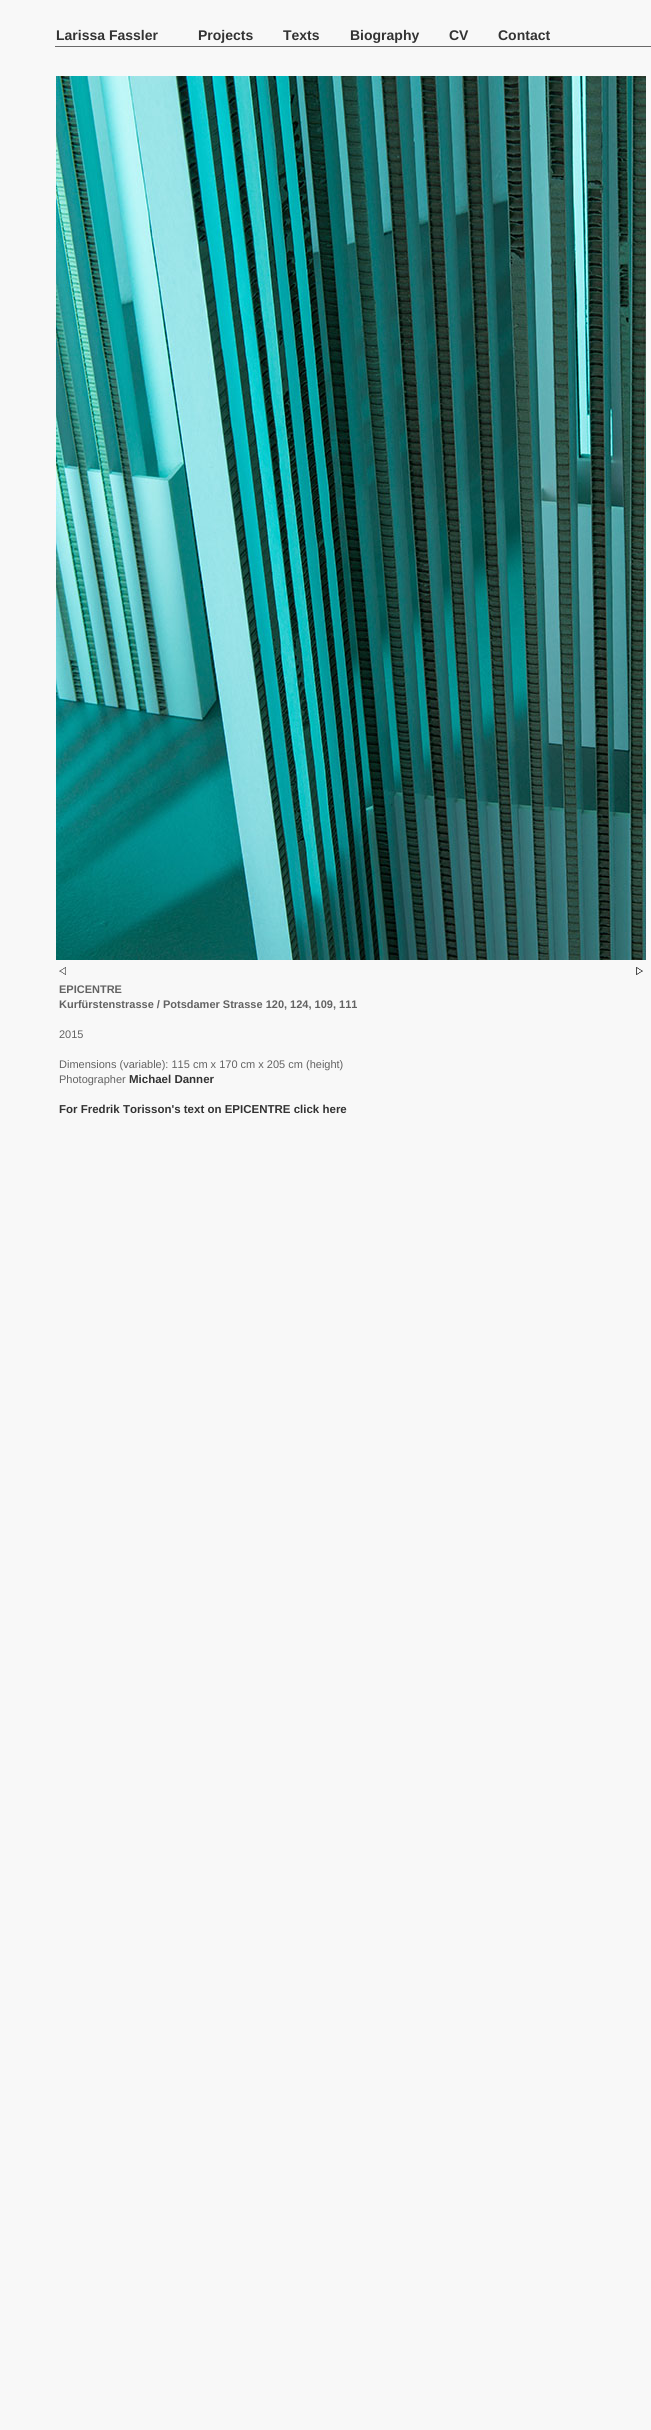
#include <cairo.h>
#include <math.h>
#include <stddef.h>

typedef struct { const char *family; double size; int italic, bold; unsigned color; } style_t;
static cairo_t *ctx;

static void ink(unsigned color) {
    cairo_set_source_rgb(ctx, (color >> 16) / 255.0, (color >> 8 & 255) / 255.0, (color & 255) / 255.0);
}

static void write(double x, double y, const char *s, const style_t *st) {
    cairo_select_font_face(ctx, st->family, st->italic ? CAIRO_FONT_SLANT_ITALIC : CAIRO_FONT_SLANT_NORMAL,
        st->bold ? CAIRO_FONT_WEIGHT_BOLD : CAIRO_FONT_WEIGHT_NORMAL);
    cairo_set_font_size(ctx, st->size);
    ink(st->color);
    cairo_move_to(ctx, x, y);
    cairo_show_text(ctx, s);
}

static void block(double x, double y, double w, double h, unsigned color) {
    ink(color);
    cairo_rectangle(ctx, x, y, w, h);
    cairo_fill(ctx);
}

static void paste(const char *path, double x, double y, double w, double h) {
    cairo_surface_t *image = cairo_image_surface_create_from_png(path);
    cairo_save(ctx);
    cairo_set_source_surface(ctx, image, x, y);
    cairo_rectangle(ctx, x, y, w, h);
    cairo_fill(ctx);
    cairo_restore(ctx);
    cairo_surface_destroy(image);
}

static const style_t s1 = {"Liberation Sans", 14, 0, 1, 0x333333};
static const style_t s2 = {"Liberation Sans", 11, 0, 1, 0x626262};
static const style_t s3 = {"Liberation Sans", 11, 0, 0, 0x626262};
static const style_t s4 = {"Liberation Sans", 11.5, 0, 1, 0x333333};

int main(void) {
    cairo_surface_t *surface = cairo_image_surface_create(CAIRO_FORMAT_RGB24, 651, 2430);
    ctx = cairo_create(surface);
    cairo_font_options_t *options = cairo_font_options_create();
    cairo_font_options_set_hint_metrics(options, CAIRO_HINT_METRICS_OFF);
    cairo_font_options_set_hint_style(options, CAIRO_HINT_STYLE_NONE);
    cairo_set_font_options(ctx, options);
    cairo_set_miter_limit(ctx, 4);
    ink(0xf8f8f8);
    cairo_paint(ctx);
    write(56, 40, "Larissa Fassler", &s1);
    write(198, 40, "Projects", &s1);
    write(283, 40, "Texts", &s1);
    write(350, 40, "Biography", &s1);
    write(449, 40, "CV", &s1);
    write(498, 40, "Contact", &s1);
    block(55, 46, 596, 1, 0x696969);
    paste("pic1.png", 56, 76, 590, 884);
    paste("pic2.png", 59, 967, 7, 8);
    paste("pic3.png", 636, 967, 7, 8);
    write(59, 993, "EPICENTRE", &s2);
    write(59, 1008, "Kurfürstenstrasse / Potsdamer Strasse 120, 124, 109, 111", &s2);
    write(59, 1038, "2015", &s3);
    write(59, 1068, "Dimensions (variable): 115 cm x 170 cm x 205 cm (height)", &s3);
    write(59, 1083, "Photographer", &s3);
    write(129, 1083, "Michael Danner", &s4);
    write(59, 1113, "For Fredrik Torisson's text on EPICENTRE click here", &s4);
    cairo_surface_write_to_png(surface, "screenshot.png");
    cairo_font_options_destroy(options);
    cairo_destroy(ctx);
    cairo_surface_destroy(surface);
    return 0;
}
